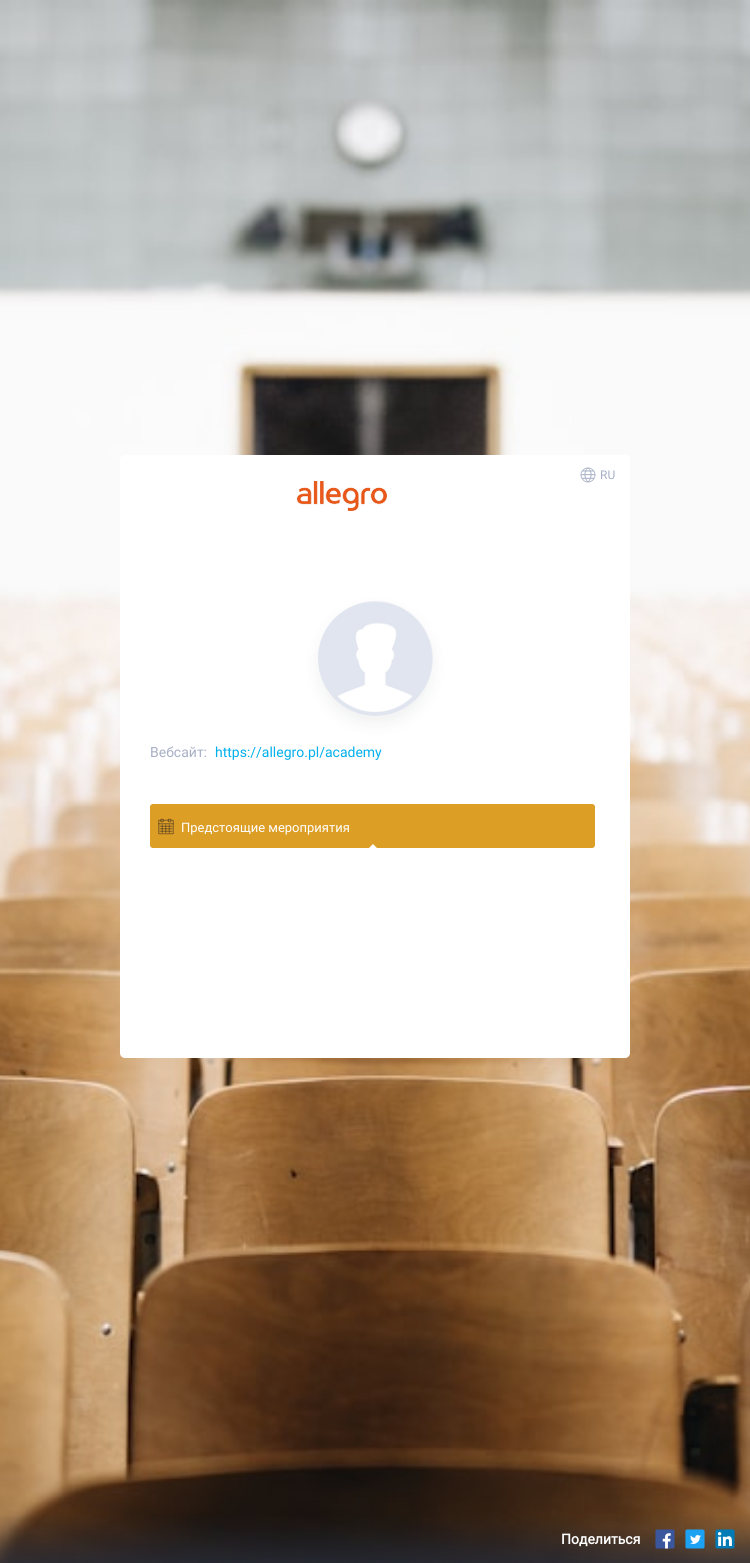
#include <cairo.h>
#include <math.h>
#include <stddef.h>

typedef struct { const char *family; double size; int italic, bold; unsigned color; } style_t;
static cairo_t *ctx;

static void ink(unsigned color) {
    cairo_set_source_rgb(ctx, (color >> 16) / 255.0, (color >> 8 & 255) / 255.0, (color & 255) / 255.0);
}

static void write(double x, double y, const char *s, const style_t *st) {
    cairo_select_font_face(ctx, st->family, st->italic ? CAIRO_FONT_SLANT_ITALIC : CAIRO_FONT_SLANT_NORMAL,
        st->bold ? CAIRO_FONT_WEIGHT_BOLD : CAIRO_FONT_WEIGHT_NORMAL);
    cairo_set_font_size(ctx, st->size);
    ink(st->color);
    cairo_move_to(ctx, x, y);
    cairo_show_text(ctx, s);
}

static void round_path(double x, double y, double w, double h, double r) {
    cairo_new_sub_path(ctx);
    cairo_arc(ctx, x + w - r, y + h - r, r, 0, M_PI / 2);
    cairo_arc(ctx, x + r, y + h - r, r, M_PI / 2, M_PI);
    cairo_arc(ctx, x + r, y + r, r, M_PI, 1.5 * M_PI);
    cairo_arc(ctx, x + w - r, y + r, r, 1.5 * M_PI, 2 * M_PI);
    cairo_close_path(ctx);
}

static void blur_box(double x, double y, double w, double h, double r, double blur, double alpha) {
    cairo_push_group_with_content(ctx, CAIRO_CONTENT_ALPHA);
    cairo_set_operator(ctx, CAIRO_OPERATOR_SOURCE);
    for (int i = 15; i >= -15 && fmin(w, h) + blur * i / 3 > 0; i -= 2) {
        double e = blur * i / 6;
        cairo_set_source_rgba(ctx, 0, 0, 0, alpha * erfc((i - 1) / 8.5) / 2);
        round_path(x - e, y - e, w + 2 * e, h + 2 * e, fmax(0, fmin(r + e + blur * .6, fmin(w, h) / 2 + e)));
        cairo_fill(ctx);
    }
    cairo_pattern_t *soft = cairo_pop_group(ctx);
    cairo_mask(ctx, soft);
    cairo_pattern_destroy(soft);
}

static void paste(const char *path, double x, double y, double w, double h) {
    cairo_surface_t *image = cairo_image_surface_create_from_png(path);
    cairo_save(ctx);
    cairo_set_source_surface(ctx, image, x, y);
    cairo_rectangle(ctx, x, y, w, h);
    cairo_fill(ctx);
    cairo_restore(ctx);
    cairo_surface_destroy(image);
}

static const style_t s1 = {"Roboto", 12, 0, 0, 0xa7afc6};
static const style_t s2 = {"Roboto", 14, 0, 0, 0xa7afc6};
static const style_t s3 = {"Roboto", 14, 0, 0, 0x00afec};
static const style_t s4 = {"Roboto", 13, 0, 0, 0xffffff};
static const style_t s5 = {"Roboto", 14, 0, 1, 0xffffff};

int main(void) {
    cairo_surface_t *surface = cairo_image_surface_create(CAIRO_FORMAT_RGB24, 750, 1563);
    ctx = cairo_create(surface);
    cairo_font_options_t *options = cairo_font_options_create();
    cairo_font_options_set_hint_metrics(options, CAIRO_HINT_METRICS_OFF);
    cairo_font_options_set_hint_style(options, CAIRO_HINT_STYLE_NONE);
    cairo_set_font_options(ctx, options);
    cairo_set_miter_limit(ctx, 4);
    ink(0xffffff);
    cairo_paint(ctx);
    paste("pic1.png", 0, 0, 750, 1563);
    ink(0xffffff);
    round_path(120, 455, 510, 603, 5);
    cairo_fill(ctx);
    paste("pic2.png", 580, 467, 16, 16);
    write(600, 479, "RU", &s1);
    paste("pic3.png", 297, 481, 90, 30);
    ink(0x2d313c);
    blur_box(318, 609, 115, 115, 57.5, 8, 0.07);
    ink(0xf2f3f7);
    cairo_arc(ctx, 375.5, 658.5, 57.5, 0, 2 * M_PI);
    cairo_fill(ctx);
    paste("pic4.png", 318, 601, 115, 115);
    write(150, 757, "Вебсайт:", &s2);
    write(215, 757, "https://allegro.pl/academy", &s3);
    ink(0xdd9e25);
    round_path(150.5, 804.5, 444, 43, 2.5);
    cairo_fill_preserve(ctx);
    cairo_set_line_width(ctx, 1);
    cairo_stroke(ctx);
    paste("pic5.png", 158, 818, 16, 17);
    write(181, 832, "Предстоящие мероприятия", &s4);
    cairo_new_path(ctx);
    cairo_move_to(ctx, 377, 848);
    cairo_line_to(ctx, 369, 848);
    cairo_line_to(ctx, 373, 844);
    cairo_close_path(ctx);
    cairo_fill(ctx);
    paste("pic6.png", 0, 1516, 750, 47);
    write(561, 1544, "Поделиться", &s5);
    paste("pic7.png", 655, 1529, 20, 20);
    paste("pic8.png", 685, 1529, 20, 20);
    paste("pic9.png", 715, 1529, 20, 20);
    cairo_surface_write_to_png(surface, "screenshot.png");
    cairo_font_options_destroy(options);
    cairo_destroy(ctx);
    cairo_surface_destroy(surface);
    return 0;
}
